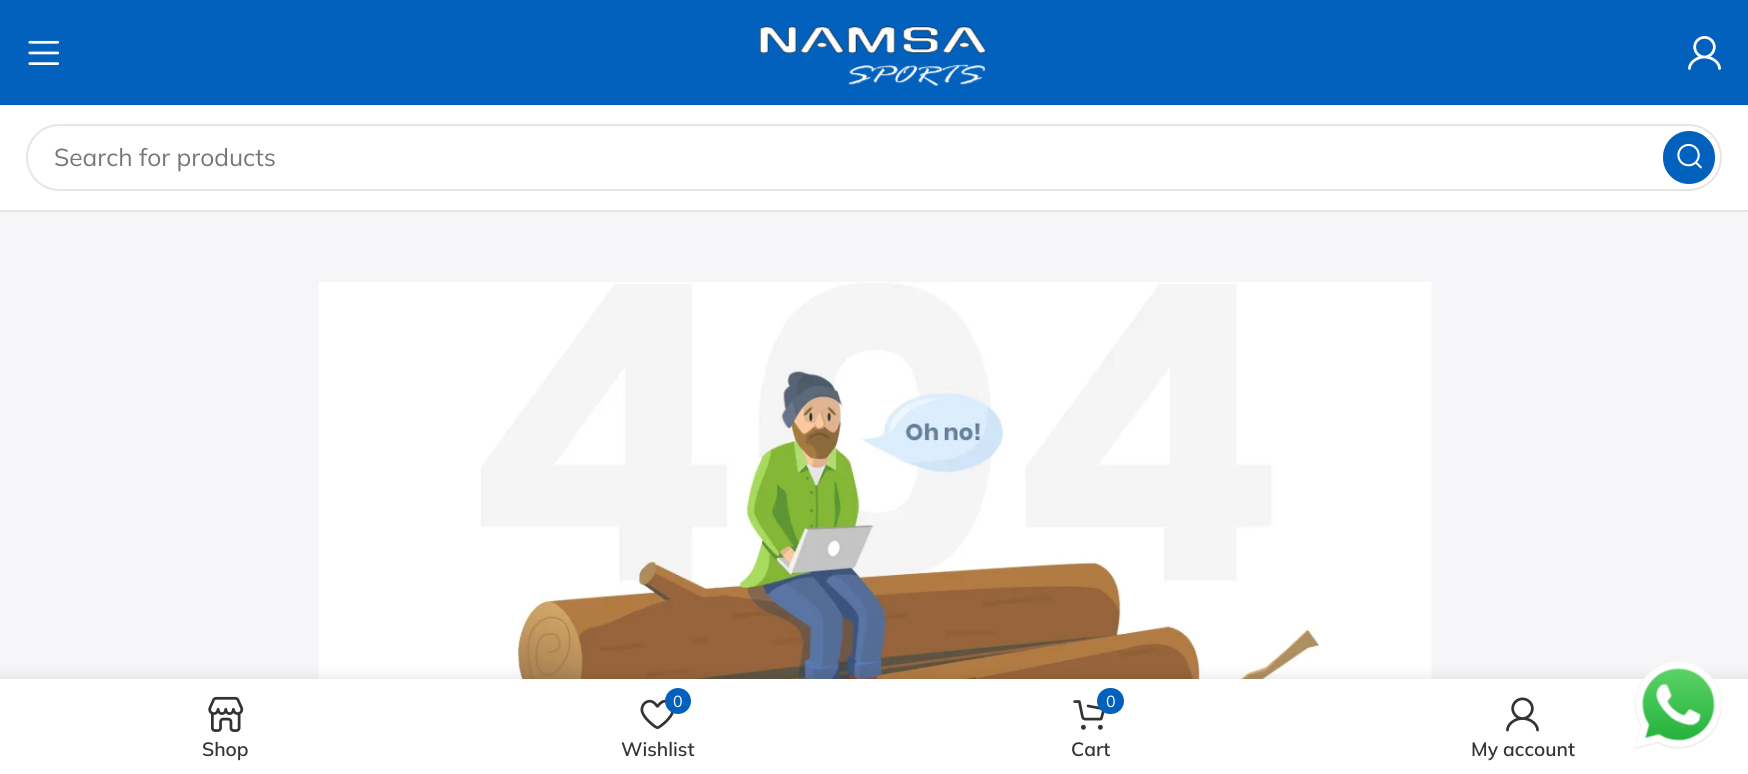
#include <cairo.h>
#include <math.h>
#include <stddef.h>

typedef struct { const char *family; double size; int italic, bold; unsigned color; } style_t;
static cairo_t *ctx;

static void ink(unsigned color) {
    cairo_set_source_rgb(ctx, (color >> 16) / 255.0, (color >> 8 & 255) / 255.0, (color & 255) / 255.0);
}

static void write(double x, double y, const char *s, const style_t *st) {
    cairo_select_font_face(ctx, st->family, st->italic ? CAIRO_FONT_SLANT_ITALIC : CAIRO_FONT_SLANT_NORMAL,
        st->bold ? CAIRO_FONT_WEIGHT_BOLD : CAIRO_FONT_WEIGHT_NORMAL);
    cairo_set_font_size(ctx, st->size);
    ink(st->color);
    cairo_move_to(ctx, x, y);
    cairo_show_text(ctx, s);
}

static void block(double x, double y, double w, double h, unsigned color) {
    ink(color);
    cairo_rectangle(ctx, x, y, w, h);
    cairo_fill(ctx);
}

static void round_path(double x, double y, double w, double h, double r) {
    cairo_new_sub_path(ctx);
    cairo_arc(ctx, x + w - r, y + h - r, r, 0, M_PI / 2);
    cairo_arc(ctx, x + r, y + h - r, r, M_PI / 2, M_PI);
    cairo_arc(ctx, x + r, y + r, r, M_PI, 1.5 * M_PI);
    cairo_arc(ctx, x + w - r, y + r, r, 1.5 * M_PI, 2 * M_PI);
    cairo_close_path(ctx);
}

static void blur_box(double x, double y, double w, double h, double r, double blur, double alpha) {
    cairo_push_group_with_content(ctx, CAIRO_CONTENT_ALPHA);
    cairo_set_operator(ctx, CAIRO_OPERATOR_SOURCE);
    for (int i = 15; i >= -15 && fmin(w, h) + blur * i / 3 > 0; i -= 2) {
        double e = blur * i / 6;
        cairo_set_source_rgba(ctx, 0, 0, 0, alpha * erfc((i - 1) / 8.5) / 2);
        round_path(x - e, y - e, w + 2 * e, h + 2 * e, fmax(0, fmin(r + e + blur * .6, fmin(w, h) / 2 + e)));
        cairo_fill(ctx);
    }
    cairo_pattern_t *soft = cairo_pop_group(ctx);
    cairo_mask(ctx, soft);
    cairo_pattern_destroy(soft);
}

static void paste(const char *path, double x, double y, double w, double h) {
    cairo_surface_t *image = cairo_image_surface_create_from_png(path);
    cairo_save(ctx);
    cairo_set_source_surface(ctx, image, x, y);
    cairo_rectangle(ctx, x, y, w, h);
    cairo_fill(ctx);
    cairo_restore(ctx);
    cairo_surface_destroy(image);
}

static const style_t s1 = {"Mulish", 24.5, 0, 0, 0x777777};
static const style_t s2 = {"Mulish SemiBold", 19.25, 0, 0, 0x333333};
static const style_t s3 = {"Mulish", 16, 0, 0, 0xffffff};

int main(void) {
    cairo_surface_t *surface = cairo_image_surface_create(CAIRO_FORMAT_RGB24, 1748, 774);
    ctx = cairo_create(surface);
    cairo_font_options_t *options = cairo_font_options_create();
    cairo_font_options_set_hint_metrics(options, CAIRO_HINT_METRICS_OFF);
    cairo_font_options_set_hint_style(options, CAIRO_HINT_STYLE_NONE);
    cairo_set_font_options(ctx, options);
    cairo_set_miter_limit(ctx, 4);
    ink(0xffffff);
    cairo_paint(ctx);
    block(0, 0, 1748, 105, 0x0261bd);
    paste("pic1.png", 28, 40, 31, 25);
    paste("pic2.png", 759, 26, 228, 61);
    paste("pic3.png", 1688, 36, 33, 34);
    block(0, 210, 1748, 2, 0xe6e6e6);
    round_path(27, 125, 1694, 65, 32.5);
    cairo_stroke(ctx);
    write(54, 166, "Search for products", &s1);
    ink(0x0261bd);
    round_path(1663, 131, 52, 53, 26);
    cairo_fill(ctx);
    paste("pic4.png", 1677, 143, 25, 26);
    block(0, 212, 1748, 467, 0xf6f5f8);
    paste("pic5.png", 318, 282, 1114, 397);
    ink(0x000000);
    blur_box(0, 679, 1748, 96, 0, 8, 0.12);
    block(0, 679, 1748, 95, 0xffffff);
    paste("pic6.png", 208, 696, 36, 36);
    write(202, 756, "Shop", &s2);
    paste("pic7.png", 640, 699, 34, 31);
    ink(0x0261bd);
    cairo_arc(ctx, 678, 701, 13, 0, 2 * M_PI);
    cairo_fill(ctx);
    write(673, 707, "0", &s3);
    write(621, 756, "Wishlist", &s2);
    paste("pic8.png", 1073, 700, 32, 30);
    ink(0x0261bd);
    round_path(1097, 688, 27, 26, 13);
    cairo_fill(ctx);
    write(1106, 707, "0", &s3);
    write(1071, 756, "Cart", &s2);
    paste("pic9.png", 1506, 697, 33, 35);
    write(1471, 756, "My account", &s2);
    paste("pic10.png", 1634, 661, 88, 88);
    cairo_surface_write_to_png(surface, "screenshot.png");
    cairo_font_options_destroy(options);
    cairo_destroy(ctx);
    cairo_surface_destroy(surface);
    return 0;
}
